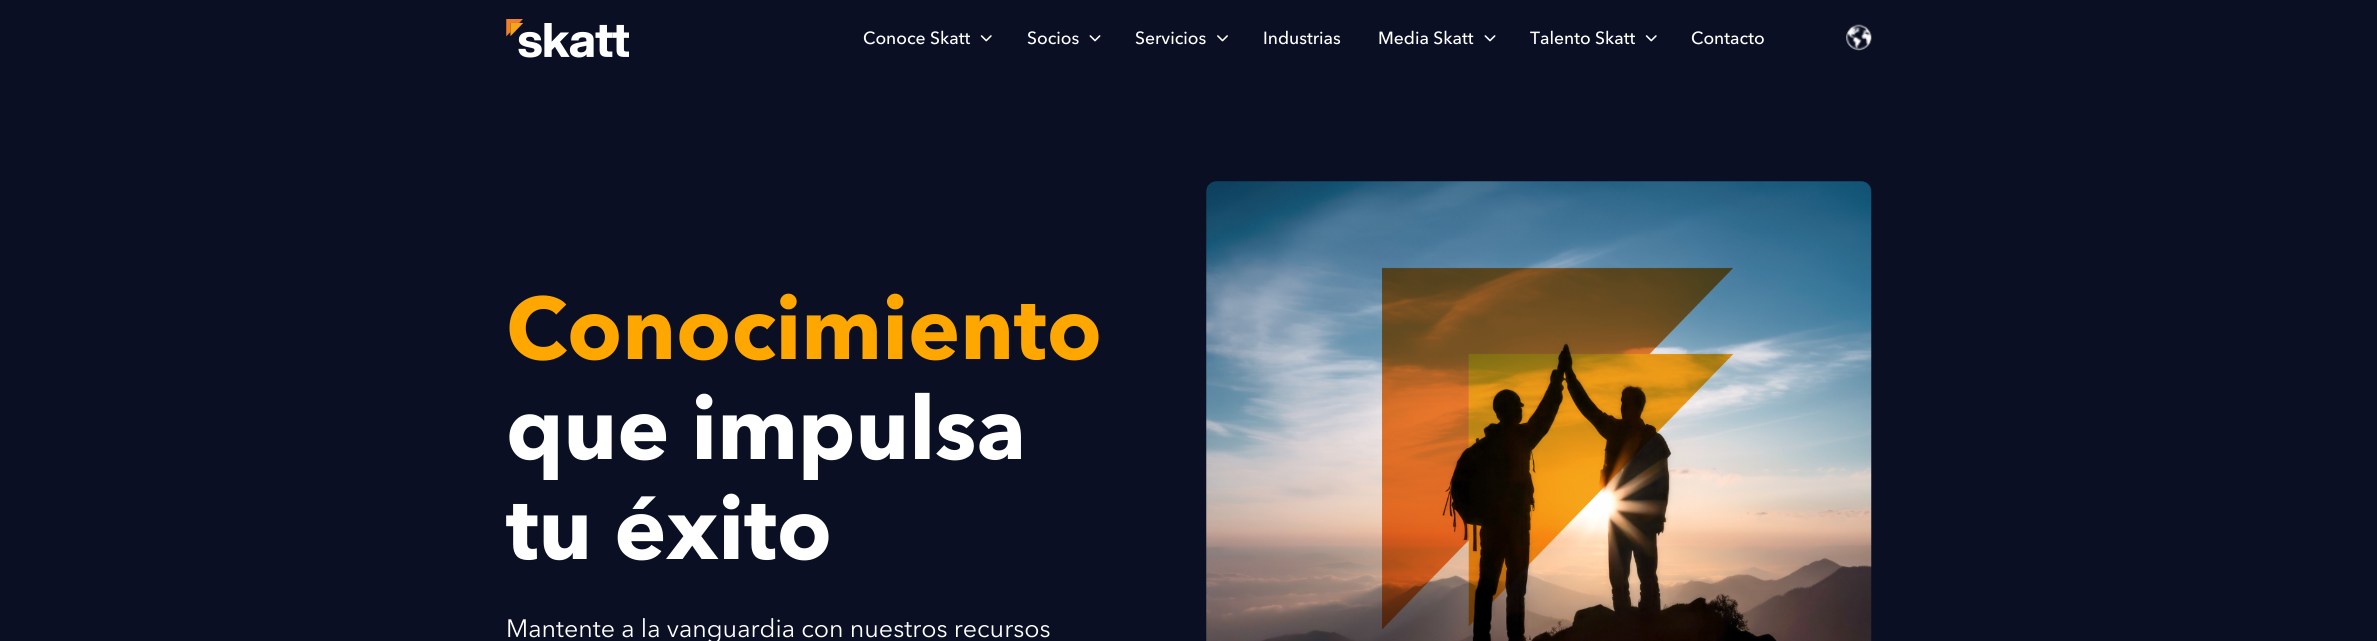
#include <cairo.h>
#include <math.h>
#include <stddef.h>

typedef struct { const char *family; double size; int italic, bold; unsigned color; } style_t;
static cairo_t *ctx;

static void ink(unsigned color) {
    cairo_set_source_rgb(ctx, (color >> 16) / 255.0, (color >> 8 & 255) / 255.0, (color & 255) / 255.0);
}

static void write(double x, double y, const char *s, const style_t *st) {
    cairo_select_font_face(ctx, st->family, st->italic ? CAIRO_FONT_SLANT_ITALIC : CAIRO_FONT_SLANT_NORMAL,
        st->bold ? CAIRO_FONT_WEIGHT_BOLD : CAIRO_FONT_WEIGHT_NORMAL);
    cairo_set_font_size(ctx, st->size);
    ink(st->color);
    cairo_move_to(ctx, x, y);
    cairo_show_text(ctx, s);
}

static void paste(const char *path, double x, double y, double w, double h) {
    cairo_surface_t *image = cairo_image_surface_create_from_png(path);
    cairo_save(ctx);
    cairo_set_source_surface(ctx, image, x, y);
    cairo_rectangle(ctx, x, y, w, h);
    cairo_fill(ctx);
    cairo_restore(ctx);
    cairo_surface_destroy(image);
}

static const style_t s1 = {"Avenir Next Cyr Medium", 17.5, 0, 0, 0xffffff};
static const style_t s2 = {"Avenir Next Cyr", 87.5, 0, 1, 0xffa701};
static const style_t s3 = {"Avenir Next Cyr", 87.5, 0, 1, 0xffffff};
static const style_t s4 = {"Avenir Next Cyr", 25, 0, 0, 0xffffff};

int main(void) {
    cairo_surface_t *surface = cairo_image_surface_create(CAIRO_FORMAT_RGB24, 2377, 641);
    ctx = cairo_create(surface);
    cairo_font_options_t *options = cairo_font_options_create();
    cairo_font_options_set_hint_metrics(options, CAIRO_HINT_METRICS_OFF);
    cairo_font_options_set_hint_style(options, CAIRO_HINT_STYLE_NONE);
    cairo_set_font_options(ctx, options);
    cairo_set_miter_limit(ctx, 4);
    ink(0x0a0f24);
    cairo_paint(ctx);
    paste("pic1.png", 506, 19, 123, 39);
    write(863, 44, "Conoce Skatt", &s1);
    paste("pic2.png", 980, 35, 12, 7);
    write(1027, 44, "Socios", &s1);
    paste("pic3.png", 1089, 35, 12, 7);
    write(1135, 44, "Servicios", &s1);
    paste("pic4.png", 1217, 35, 11, 7);
    write(1263, 44, "Industrias", &s1);
    write(1378, 44, "Media Skatt", &s1);
    paste("pic3.png", 1484, 35, 12, 7);
    write(1530, 44, "Talento Skatt", &s1);
    paste("pic2.png", 1645, 35, 12, 7);
    write(1691, 44, "Contacto", &s1);
    paste("pic5.png", 1846, 24, 26, 27);
    write(506, 359, "Conocimiento", &s2);
    write(506, 459, "que impulsa", &s3);
    write(506, 559, "tu éxito", &s3);
    write(506, 637, "Mantente a la vanguardia con nuestros recursos", &s4);
    paste("pic6.png", 1206, 181, 666, 460);
    cairo_surface_write_to_png(surface, "screenshot.png");
    cairo_font_options_destroy(options);
    cairo_destroy(ctx);
    cairo_surface_destroy(surface);
    return 0;
}
